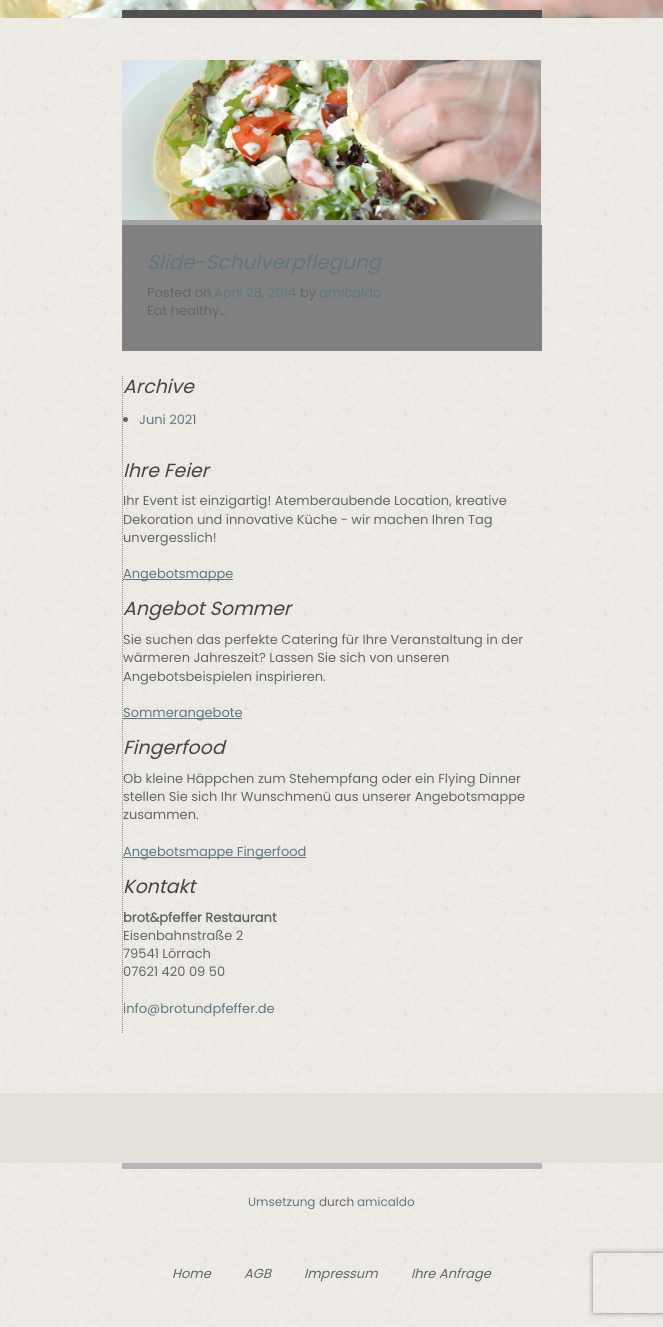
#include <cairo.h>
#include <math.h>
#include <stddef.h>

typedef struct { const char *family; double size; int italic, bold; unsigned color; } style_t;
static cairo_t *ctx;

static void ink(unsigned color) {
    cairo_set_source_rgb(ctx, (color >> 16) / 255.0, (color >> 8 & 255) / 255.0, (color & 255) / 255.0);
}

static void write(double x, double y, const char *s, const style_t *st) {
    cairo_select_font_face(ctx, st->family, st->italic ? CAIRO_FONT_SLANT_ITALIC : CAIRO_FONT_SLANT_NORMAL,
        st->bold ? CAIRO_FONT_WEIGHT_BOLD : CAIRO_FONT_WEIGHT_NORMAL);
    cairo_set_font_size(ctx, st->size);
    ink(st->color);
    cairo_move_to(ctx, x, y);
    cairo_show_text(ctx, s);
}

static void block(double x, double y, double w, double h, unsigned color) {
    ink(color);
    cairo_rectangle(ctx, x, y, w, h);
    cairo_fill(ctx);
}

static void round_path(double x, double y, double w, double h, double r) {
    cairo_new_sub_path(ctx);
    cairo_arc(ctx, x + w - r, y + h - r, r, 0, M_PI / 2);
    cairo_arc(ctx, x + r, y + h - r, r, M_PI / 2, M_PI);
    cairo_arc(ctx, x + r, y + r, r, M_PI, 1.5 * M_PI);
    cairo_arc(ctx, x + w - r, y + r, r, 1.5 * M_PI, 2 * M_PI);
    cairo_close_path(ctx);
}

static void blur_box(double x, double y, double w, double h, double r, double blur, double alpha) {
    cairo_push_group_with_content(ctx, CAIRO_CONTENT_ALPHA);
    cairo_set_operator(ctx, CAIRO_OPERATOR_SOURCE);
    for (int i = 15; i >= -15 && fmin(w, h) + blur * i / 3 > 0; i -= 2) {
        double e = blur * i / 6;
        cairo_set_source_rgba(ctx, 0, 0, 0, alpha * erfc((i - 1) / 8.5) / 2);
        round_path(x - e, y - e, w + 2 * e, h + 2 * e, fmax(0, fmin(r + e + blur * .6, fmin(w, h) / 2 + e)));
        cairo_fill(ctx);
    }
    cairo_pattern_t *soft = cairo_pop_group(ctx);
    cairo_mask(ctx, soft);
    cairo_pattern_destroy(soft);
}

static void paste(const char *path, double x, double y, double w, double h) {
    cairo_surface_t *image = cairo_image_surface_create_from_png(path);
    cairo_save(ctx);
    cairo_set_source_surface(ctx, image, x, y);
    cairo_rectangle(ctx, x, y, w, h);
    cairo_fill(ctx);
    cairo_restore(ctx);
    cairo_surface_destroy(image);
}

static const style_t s1 = {"Poppins", 20, 1, 0, 0x5f757e};
static const style_t s2 = {"Poppins", 13, 0, 0, 0x5f6567};
static const style_t s3 = {"Poppins", 13, 0, 0, 0x5f757e};
static const style_t s4 = {"Poppins", 19, 1, 0, 0x454545};
static const style_t s5 = {"Poppins", 13, 0, 1, 0x5f6567};
static const style_t s6 = {"Poppins", 12, 0, 0, 0x5f757e};
static const style_t s7 = {"Poppins", 12, 0, 0, 0x5f6567};
static const style_t s8 = {"Poppins", 13, 1, 0, 0x5f6567};

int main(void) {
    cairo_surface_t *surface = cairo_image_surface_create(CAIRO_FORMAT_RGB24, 663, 1327);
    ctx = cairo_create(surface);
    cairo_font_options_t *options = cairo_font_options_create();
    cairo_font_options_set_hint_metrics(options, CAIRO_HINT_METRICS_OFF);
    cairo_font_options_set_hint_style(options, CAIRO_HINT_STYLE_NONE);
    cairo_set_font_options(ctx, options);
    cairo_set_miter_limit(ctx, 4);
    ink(0xffffff);
    cairo_paint(ctx);
    paste("pic1.png", 0, 0, 663, 18);
    block(122, 10, 420, 8, 0x515151);
    paste("pic2.png", 0, 18, 663, 1075);
    paste("pic3.png", 122, 60, 419, 160);
    block(122, 220, 419, 5, 0xa3a3a3);
    block(122, 225, 420, 126, 0x808080);
    write(147, 269, "Slide-Schulverpflegung", &s1);
    write(147, 297, "Posted on", &s2);
    write(214, 297, "April 28, 2014", &s3);
    write(300, 297, "by", &s2);
    write(319, 297, "amicaldo", &s3);
    write(147, 315, "Eat healthy…", &s2);
    cairo_new_path(ctx);
    cairo_move_to(ctx, 122.5, 376);
    cairo_line_to(ctx, 122.5, 1033);
    ink(0x919191);
    cairo_set_line_width(ctx, 1);
    cairo_set_dash(ctx, (double[]){1, 1}, 2, 0);
    cairo_stroke(ctx);
    write(123, 393, "Archive", &s4);
    ink(0x5f6567);
    cairo_new_path(ctx);
    cairo_arc(ctx, 125.5, 419.5, 2.5, 0, 2 * M_PI);
    cairo_fill(ctx);
    write(139, 424, "Juni 2021", &s3);
    write(123, 477, "Ihre Feier", &s4);
    write(123, 505, "Ihr Event ist einzigartig! Atemberaubende Location, kreative", &s2);
    write(123, 524, "Dekoration und innovative Küche - wir machen Ihren Tag", &s2);
    write(123, 542, "unvergesslich!", &s2);
    block(123, 579, 110, 1, 0x5f757e);
    write(123, 578, "Angebotsmappe", &s3);
    write(123, 615, "Angebot Sommer", &s4);
    write(123, 644, "Sie suchen das perfekte Catering für Ihre Veranstaltung in der", &s2);
    write(123, 662, "wärmeren Jahreszeit? Lassen Sie sich von unseren", &s2);
    write(123, 681, "Angebotsbeispielen inspirieren.", &s2);
    block(123, 718, 119, 1, 0x5f757e);
    write(123, 717, "Sommerangebote", &s3);
    write(123, 754, "Fingerfood", &s4);
    write(123, 783, "Ob kleine Häppchen zum Stehempfang oder ein Flying Dinner", &s2);
    write(123, 801, "stellen Sie sich Ihr Wunschmenü aus unserer Angebotsmappe", &s2);
    write(123, 819, "zusammen.", &s2);
    block(123, 857, 183, 1, 0x5f757e);
    write(123, 856, "Angebotsmappe Fingerfood", &s3);
    write(123, 893, "Kontakt", &s4);
    write(123, 922, "brot&pfeffer Restaurant", &s5);
    write(123, 940, "Eisenbahnstraße 2", &s2);
    write(123, 958, "79541 Lörrach", &s2);
    write(123, 976, "07621 420 09 50", &s2);
    write(123, 1013, "info@brotundpfeffer.de", &s3);
    block(0, 1093, 663, 70, 0xe3e0d9);
    paste("pic4.png", 0, 1163, 663, 164);
    block(122, 1163, 420, 6, 0xb5b5b5);
    write(248, 1206, "Umsetzung", &s6);
    write(319, 1206, "durch", &s7);
    write(357, 1206, "amicaldo", &s6);
    write(172, 1278, "Home", &s8);
    write(244, 1278, "AGB", &s8);
    write(304, 1278, "Impressum", &s8);
    write(411, 1278, "Ihre Anfrage", &s8);
    cairo_save(ctx);
    cairo_set_fill_rule(ctx, CAIRO_FILL_RULE_EVEN_ODD);
    cairo_new_path(ctx);
    cairo_move_to(ctx, 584, 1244);
    cairo_line_to(ctx, 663, 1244);
    cairo_line_to(ctx, 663, 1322);
    cairo_line_to(ctx, 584, 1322);
    cairo_close_path(ctx);
    cairo_move_to(ctx, 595, 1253);
    cairo_line_to(ctx, 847, 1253);
    cairo_curve_to(ctx, 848, 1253, 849, 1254, 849, 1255);
    cairo_line_to(ctx, 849, 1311);
    cairo_curve_to(ctx, 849, 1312, 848, 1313, 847, 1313);
    cairo_line_to(ctx, 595, 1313);
    cairo_curve_to(ctx, 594, 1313, 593, 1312, 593, 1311);
    cairo_line_to(ctx, 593, 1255);
    cairo_curve_to(ctx, 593, 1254, 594, 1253, 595, 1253);
    cairo_close_path(ctx);
    cairo_clip(ctx);
    ink(0x808080);
    blur_box(593, 1253, 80, 60, 2, 2.5, 1);
    cairo_restore(ctx);
    cairo_surface_write_to_png(surface, "screenshot.png");
    cairo_font_options_destroy(options);
    cairo_destroy(ctx);
    cairo_surface_destroy(surface);
    return 0;
}
